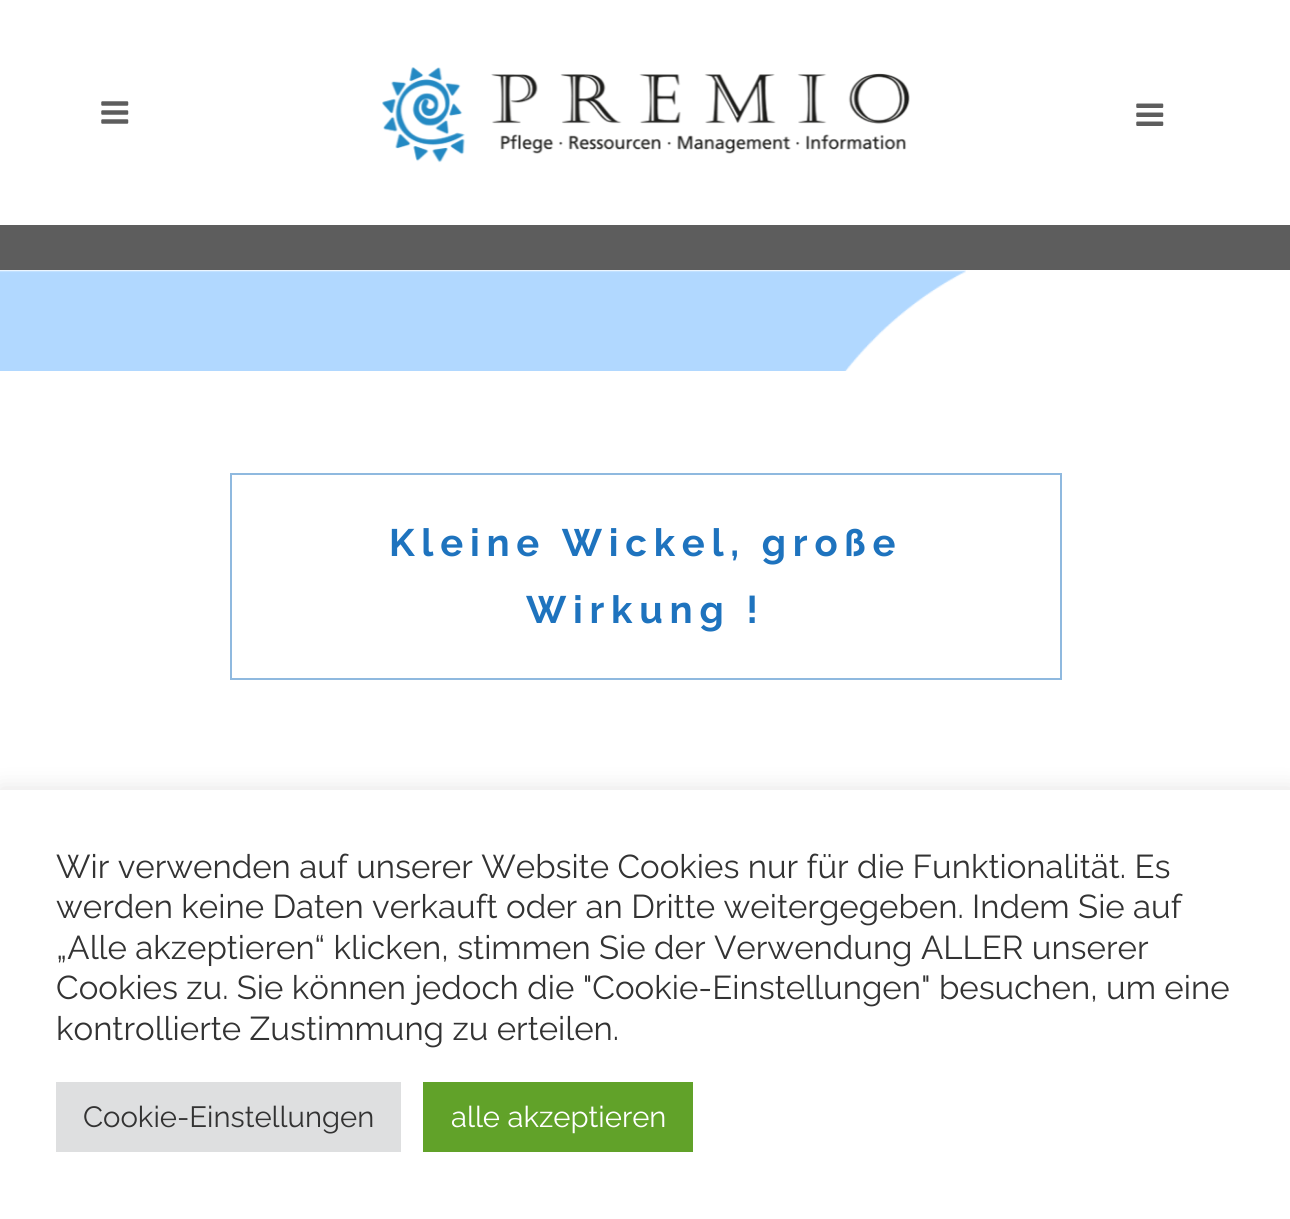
#include <cairo.h>
#include <math.h>
#include <stddef.h>

typedef struct { const char *family; double size; int italic, bold; unsigned color; } style_t;
static cairo_t *ctx;

static void ink(unsigned color) {
    cairo_set_source_rgb(ctx, (color >> 16) / 255.0, (color >> 8 & 255) / 255.0, (color & 255) / 255.0);
}

static void write(double x, double y, const char *s, const style_t *st) {
    cairo_select_font_face(ctx, st->family, st->italic ? CAIRO_FONT_SLANT_ITALIC : CAIRO_FONT_SLANT_NORMAL,
        st->bold ? CAIRO_FONT_WEIGHT_BOLD : CAIRO_FONT_WEIGHT_NORMAL);
    cairo_set_font_size(ctx, st->size);
    ink(st->color);
    cairo_move_to(ctx, x, y);
    cairo_show_text(ctx, s);
}

static void write_spaced(double x, double y, const char *s, double letter, double word) {
    cairo_move_to(ctx, x, y);
    while (*s) {
        char ch[5] = {0};
        int n = 0;
        do ch[n++] = *s++; while ((*s & 0xC0) == 0x80);
        cairo_show_text(ctx, ch);
        cairo_rel_move_to(ctx, letter + word * (*ch == ' '), 0);
    }
}

static void block(double x, double y, double w, double h, unsigned color) {
    ink(color);
    cairo_rectangle(ctx, x, y, w, h);
    cairo_fill(ctx);
}

static void round_path(double x, double y, double w, double h, double r) {
    cairo_new_sub_path(ctx);
    cairo_arc(ctx, x + w - r, y + h - r, r, 0, M_PI / 2);
    cairo_arc(ctx, x + r, y + h - r, r, M_PI / 2, M_PI);
    cairo_arc(ctx, x + r, y + r, r, M_PI, 1.5 * M_PI);
    cairo_arc(ctx, x + w - r, y + r, r, 1.5 * M_PI, 2 * M_PI);
    cairo_close_path(ctx);
}

static void blur_box(double x, double y, double w, double h, double r, double blur, double alpha) {
    cairo_push_group_with_content(ctx, CAIRO_CONTENT_ALPHA);
    cairo_set_operator(ctx, CAIRO_OPERATOR_SOURCE);
    for (int i = 15; i >= -15 && fmin(w, h) + blur * i / 3 > 0; i -= 2) {
        double e = blur * i / 6;
        cairo_set_source_rgba(ctx, 0, 0, 0, alpha * erfc((i - 1) / 8.5) / 2);
        round_path(x - e, y - e, w + 2 * e, h + 2 * e, fmax(0, fmin(r + e + blur * .6, fmin(w, h) / 2 + e)));
        cairo_fill(ctx);
    }
    cairo_pattern_t *soft = cairo_pop_group(ctx);
    cairo_mask(ctx, soft);
    cairo_pattern_destroy(soft);
}

static void paste(const char *path, double x, double y, double w, double h) {
    cairo_surface_t *image = cairo_image_surface_create_from_png(path);
    cairo_save(ctx);
    cairo_set_source_surface(ctx, image, x, y);
    cairo_rectangle(ctx, x, y, w, h);
    cairo_fill(ctx);
    cairo_restore(ctx);
    cairo_surface_destroy(image);
}

static const style_t s1 = {"Raleway", 33, 0, 0, 0x333333};
static const style_t s2 = {"Raleway", 29.25, 0, 0, 0x333333};
static const style_t s3 = {"Raleway", 29.25, 0, 0, 0xffffff};

int main(void) {
    cairo_surface_t *surface = cairo_image_surface_create(CAIRO_FORMAT_RGB24, 1290, 1219);
    ctx = cairo_create(surface);
    cairo_font_options_t *options = cairo_font_options_create();
    cairo_font_options_set_hint_metrics(options, CAIRO_HINT_METRICS_OFF);
    cairo_font_options_set_hint_style(options, CAIRO_HINT_STYLE_NONE);
    cairo_set_font_options(ctx, options);
    cairo_set_miter_limit(ctx, 4);
    ink(0xffffff);
    cairo_paint(ctx);
    paste("pic1.png", 101, 101, 28, 23);
    paste("pic2.png", 382, 67, 528, 96);
    paste("pic3.png", 1136, 103, 28, 23);
    block(0, 225, 1290, 45, 0x5d5d5d);
    paste("pic4.png", 0, 270, 966, 101);
    cairo_rectangle(ctx, 231, 474, 830, 205);
    ink(0x8fb9df);
    cairo_stroke(ctx);
    cairo_select_font_face(ctx, "Raleway", CAIRO_FONT_SLANT_NORMAL, CAIRO_FONT_WEIGHT_BOLD);
    cairo_set_font_size(ctx, 38.25);
    ink(0x1e73be);
    write_spaced(389, 556, "Kleine Wickel, große", 6.75, 0);
    write_spaced(526, 623, "Wirkung !", 6.75, 0);
    ink(0xacabab);
    blur_box(0, 788, 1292, 429, 0, 11, 0.3);
    block(0, 790, 1290, 429, 0xffffff);
    write(56, 878, "Wir verwenden auf unserer Website Cookies nur für die Funktionalität. Es", &s1);
    write(56, 918, "werden keine Daten verkauft oder an Dritte weitergegeben. Indem Sie auf", &s1);
    write(56, 959, "„Alle akzeptieren“ klicken, stimmen Sie der Verwendung ALLER unserer", &s1);
    write(56, 999, "Cookies zu. Sie können jedoch die \"Cookie-Einstellungen\" besuchen, um eine", &s1);
    write(56, 1040, "kontrollierte Zustimmung zu erteilen.", &s1);
    block(56, 1082, 345, 70, 0xdedfe0);
    write(83, 1127, "Cookie-Einstellungen", &s2);
    block(423, 1082, 270, 70, 0x61a229);
    write(451, 1127, "alle akzeptieren", &s3);
    cairo_surface_write_to_png(surface, "screenshot.png");
    cairo_font_options_destroy(options);
    cairo_destroy(ctx);
    cairo_surface_destroy(surface);
    return 0;
}
